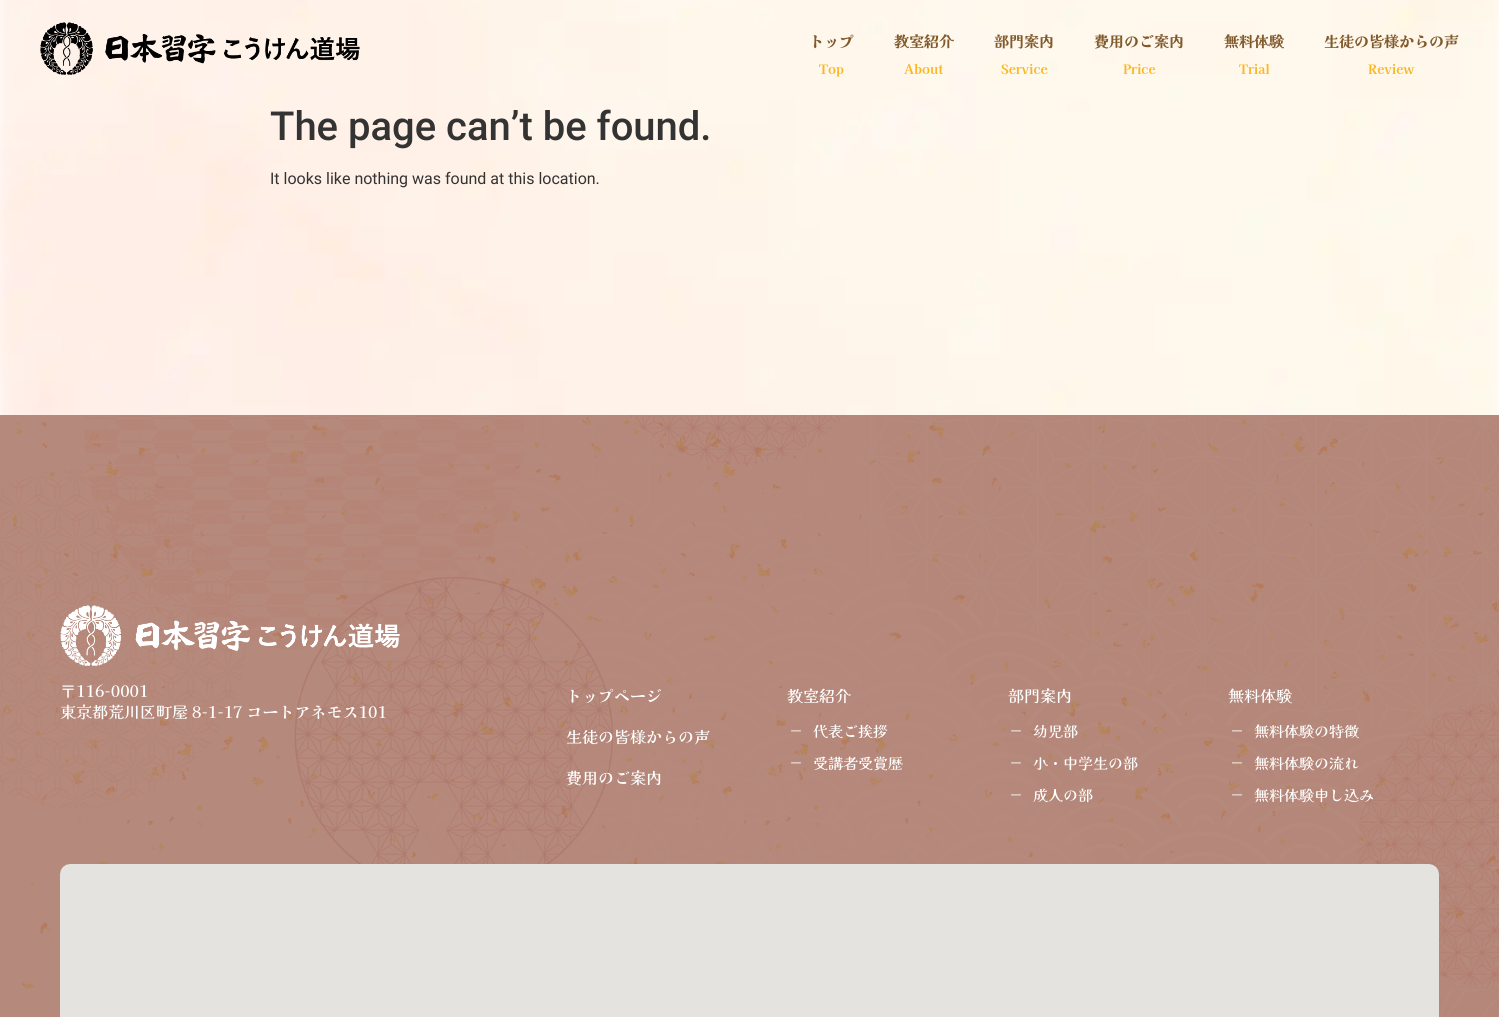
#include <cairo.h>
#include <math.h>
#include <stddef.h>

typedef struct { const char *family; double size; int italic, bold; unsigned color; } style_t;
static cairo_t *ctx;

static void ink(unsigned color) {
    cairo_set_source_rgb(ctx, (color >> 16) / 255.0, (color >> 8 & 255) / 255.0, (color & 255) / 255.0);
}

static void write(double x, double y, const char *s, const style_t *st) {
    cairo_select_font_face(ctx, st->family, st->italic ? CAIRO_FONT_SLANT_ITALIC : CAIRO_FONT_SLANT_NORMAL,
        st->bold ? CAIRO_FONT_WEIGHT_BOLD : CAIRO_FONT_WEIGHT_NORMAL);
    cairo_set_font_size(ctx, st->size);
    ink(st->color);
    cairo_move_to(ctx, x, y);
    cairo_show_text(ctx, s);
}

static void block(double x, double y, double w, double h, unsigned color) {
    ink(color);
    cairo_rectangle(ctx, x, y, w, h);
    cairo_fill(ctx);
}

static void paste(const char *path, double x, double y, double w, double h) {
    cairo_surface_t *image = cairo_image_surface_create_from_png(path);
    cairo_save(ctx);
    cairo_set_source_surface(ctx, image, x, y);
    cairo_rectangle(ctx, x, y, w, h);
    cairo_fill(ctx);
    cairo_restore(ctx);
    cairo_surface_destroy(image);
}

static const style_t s1 = {"Kaisei Tokumin ExtraBold", 15, 0, 0, 0x805a2b};
static const style_t s2 = {"Kaisei Tokumin ExtraBold", 13, 0, 0, 0xfbb721};
static const style_t s3 = {"Roboto Medium", 40, 0, 0, 0x333333};
static const style_t s4 = {"Roboto", 16, 0, 0, 0x333333};
static const style_t s5 = {"Kaisei Tokumin Medium", 16, 0, 0, 0xffffff};
static const style_t s6 = {"Kaisei Tokumin Medium", 15, 0, 0, 0xffffff};

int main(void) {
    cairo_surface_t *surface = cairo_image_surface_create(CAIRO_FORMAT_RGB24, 1499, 1017);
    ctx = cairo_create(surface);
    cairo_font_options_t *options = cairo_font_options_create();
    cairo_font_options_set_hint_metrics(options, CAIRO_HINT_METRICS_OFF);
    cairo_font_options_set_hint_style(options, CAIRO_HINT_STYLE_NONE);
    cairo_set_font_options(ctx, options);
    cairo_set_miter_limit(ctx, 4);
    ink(0xffffff);
    cairo_paint(ctx);
    paste("pic1.png", 0, 0, 1499, 415);
    paste("pic2.png", 40, 22, 320, 53);
    write(809, 47, "トップ", &s1);
    write(819, 74, "Top", &s2);
    write(894, 47, "教室紹介", &s1);
    write(904, 74, "About", &s2);
    write(994, 47, "部門案内", &s1);
    write(1001, 74, "Service", &s2);
    write(1094, 47, "費用のご案内", &s1);
    write(1123, 74, "Price", &s2);
    write(1224, 47, "無料体験", &s1);
    write(1239, 74, "Trial", &s2);
    write(1324, 47, "生徒の皆様からの声", &s1);
    write(1368, 74, "Review", &s2);
    write(270, 140, "The page can’t be found.", &s3);
    write(270, 184, "It looks like nothing was found at this location.", &s4);
    block(0, 415, 1499, 602, 0xa87565);
    paste("pic3.png", 0, 415, 1499, 602);
    paste("pic4.png", 60, 605, 340, 61);
    write(60, 697, "〒116-0001", &s5);
    write(60, 718, "東京都荒川区町屋 8-1-17 コートアネモス101", &s5);
    write(566, 702, "トップページ", &s5);
    write(566, 743, "生徒の皆様からの声", &s5);
    write(566, 784, "費用のご案内", &s5);
    write(787, 702, "教室紹介", &s5);
    paste("pic5.png", 791, 730, 10, 2);
    write(813, 737, "代表ご挨拶", &s6);
    paste("pic5.png", 791, 762, 10, 2);
    write(813, 769, "受講者受賞歴", &s6);
    write(1008, 702, "部門案内", &s5);
    paste("pic6.png", 1011, 730, 10, 2);
    write(1033, 737, "幼児部", &s6);
    paste("pic5.png", 1011, 762, 10, 2);
    write(1033, 769, "小・中学生の部", &s6);
    paste("pic7.png", 1011, 794, 10, 2);
    write(1033, 801, "成人の部", &s6);
    write(1228, 702, "無料体験", &s5);
    paste("pic6.png", 1232, 730, 10, 2);
    write(1254, 737, "無料体験の特徴", &s6);
    paste("pic8.png", 1232, 762, 10, 2);
    write(1254, 769, "無料体験の流れ", &s6);
    paste("pic9.png", 1232, 794, 10, 2);
    write(1254, 801, "無料体験申し込み", &s6);
    paste("pic10.png", 60, 864, 1379, 153);
    cairo_surface_write_to_png(surface, "screenshot.png");
    cairo_font_options_destroy(options);
    cairo_destroy(ctx);
    cairo_surface_destroy(surface);
    return 0;
}
